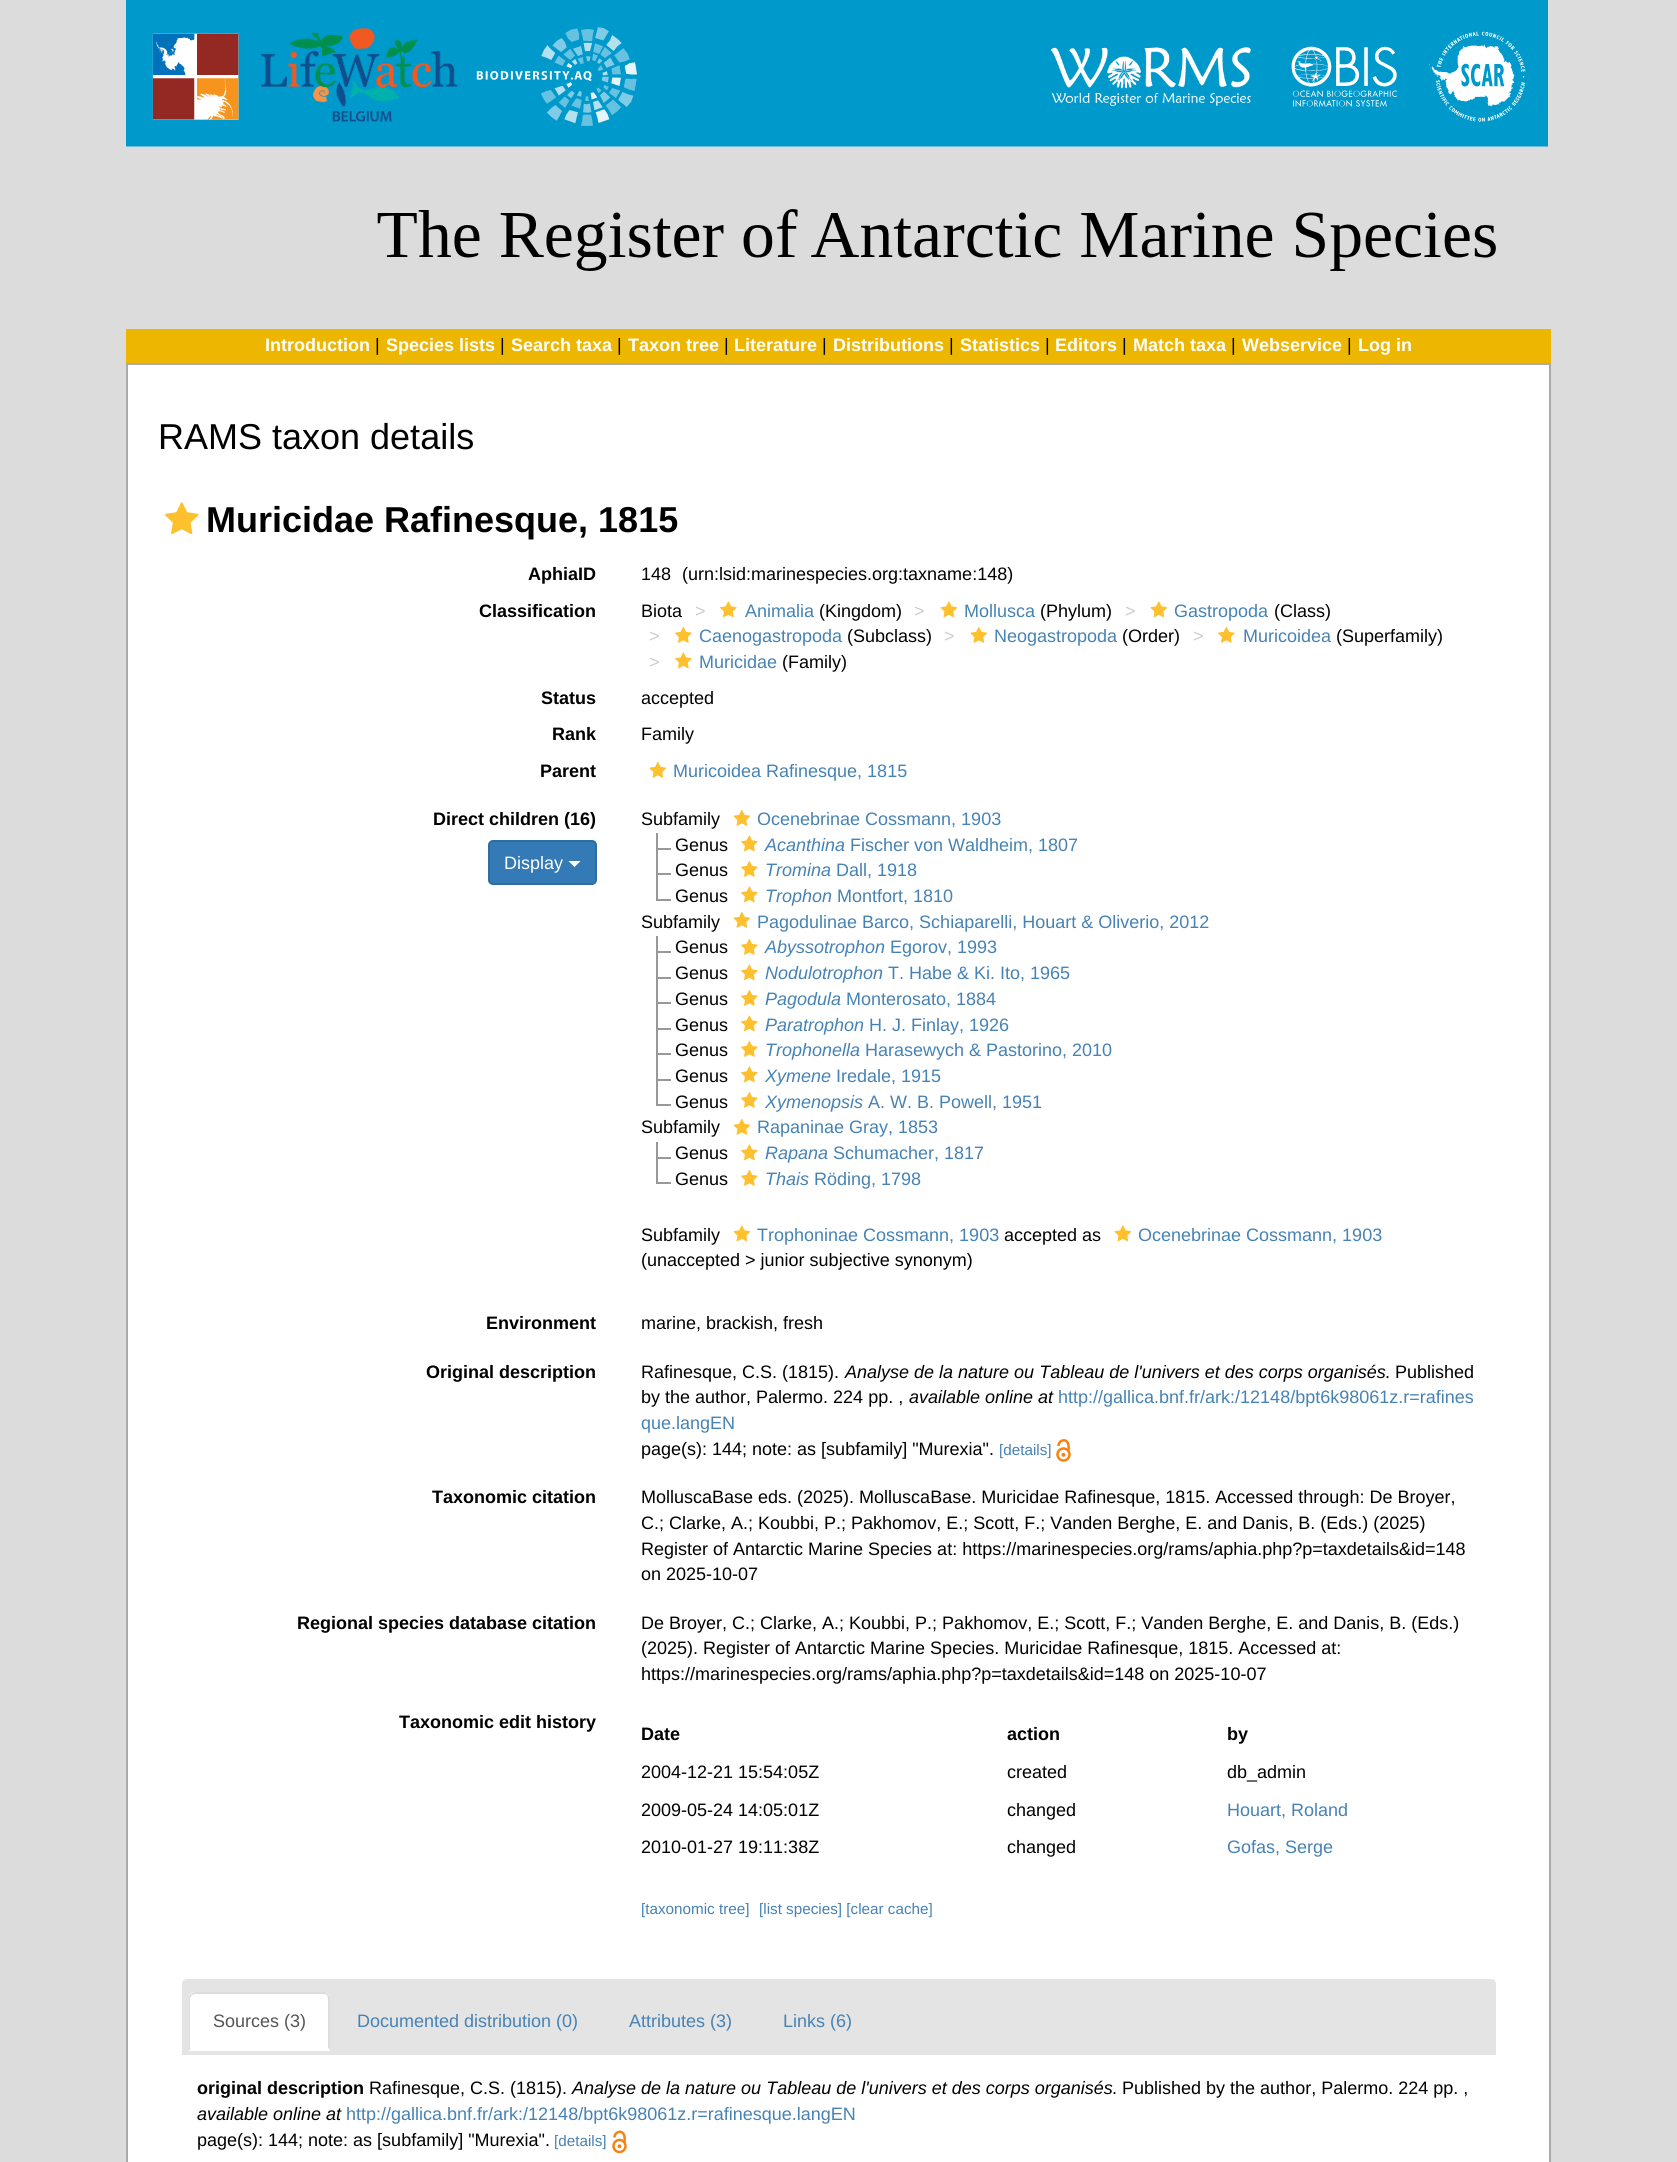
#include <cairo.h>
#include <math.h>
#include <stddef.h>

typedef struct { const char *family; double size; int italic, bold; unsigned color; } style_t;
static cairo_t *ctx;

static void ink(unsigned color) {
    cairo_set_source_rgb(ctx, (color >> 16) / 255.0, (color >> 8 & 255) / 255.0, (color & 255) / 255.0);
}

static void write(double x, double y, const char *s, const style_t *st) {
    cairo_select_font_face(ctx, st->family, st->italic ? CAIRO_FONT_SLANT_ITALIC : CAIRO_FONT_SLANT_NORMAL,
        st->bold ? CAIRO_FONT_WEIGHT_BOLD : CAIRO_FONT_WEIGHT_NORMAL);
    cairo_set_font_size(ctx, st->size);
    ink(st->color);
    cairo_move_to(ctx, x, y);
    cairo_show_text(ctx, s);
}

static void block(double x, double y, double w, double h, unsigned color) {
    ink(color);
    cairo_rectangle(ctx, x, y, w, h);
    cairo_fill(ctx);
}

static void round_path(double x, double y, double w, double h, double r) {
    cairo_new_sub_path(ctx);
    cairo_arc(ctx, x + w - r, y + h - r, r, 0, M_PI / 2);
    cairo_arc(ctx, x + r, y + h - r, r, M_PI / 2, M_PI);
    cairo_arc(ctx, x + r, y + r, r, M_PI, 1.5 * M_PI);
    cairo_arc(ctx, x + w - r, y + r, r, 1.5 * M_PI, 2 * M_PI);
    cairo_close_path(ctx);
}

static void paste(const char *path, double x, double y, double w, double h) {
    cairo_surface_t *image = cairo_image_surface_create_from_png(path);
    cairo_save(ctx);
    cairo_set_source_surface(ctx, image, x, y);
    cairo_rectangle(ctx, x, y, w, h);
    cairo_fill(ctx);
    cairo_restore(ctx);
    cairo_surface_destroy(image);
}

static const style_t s1 = {"Liberation Sans", 18, 0, 1, 0xffffff};
static const style_t s2 = {"Liberation Sans", 18, 0, 0, 0x000000};
static const style_t s3 = {"Liberation Sans", 36, 0, 0, 0x000000};
static const style_t s4 = {"Liberation Sans", 36, 0, 1, 0x000000};
static const style_t s5 = {"Liberation Sans", 18, 0, 1, 0x000000};
static const style_t s6 = {"Liberation Sans", 18, 0, 0, 0xcccccc};
static const style_t s7 = {"Liberation Sans", 18, 0, 0, 0x4682b4};
static const style_t s8 = {"Liberation Sans", 18, 0, 0, 0xffffff};
static const style_t s9 = {"Liberation Sans", 18, 1, 0, 0x4682b4};
static const style_t s10 = {"Liberation Sans", 18, 1, 0, 0x000000};
static const style_t s11 = {"Liberation Sans", 15.25, 0, 0, 0x4682b4};
static const style_t s12 = {"Liberation Sans", 18, 0, 0, 0x555555};

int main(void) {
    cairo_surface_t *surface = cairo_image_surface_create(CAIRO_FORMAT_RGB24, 1677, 2162);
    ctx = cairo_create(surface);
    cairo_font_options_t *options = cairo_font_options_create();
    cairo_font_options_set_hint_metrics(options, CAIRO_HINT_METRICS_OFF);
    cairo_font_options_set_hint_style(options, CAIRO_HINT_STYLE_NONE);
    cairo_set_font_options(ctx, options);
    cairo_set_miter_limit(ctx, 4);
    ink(0xdcdcdc);
    cairo_paint(ctx);
    paste("pic1.png", 126, 0, 1422, 271);
    block(126, 329, 1425, 34, 0xedb600);
    write(265, 351, "Introduction", &s1);
    write(375, 351, "|", &s2);
    write(386, 351, "Species lists", &s1);
    write(500, 351, "|", &s2);
    write(511, 351, "Search taxa", &s1);
    write(617, 351, "|", &s2);
    write(628, 351, "Taxon tree", &s1);
    write(724, 351, "|", &s2);
    write(734, 351, "Literature", &s1);
    write(822, 351, "|", &s2);
    write(833, 351, "Distributions", &s1);
    write(949, 351, "|", &s2);
    write(960, 351, "Statistics", &s1);
    write(1045, 351, "|", &s2);
    write(1055, 351, "Editors", &s1);
    write(1122, 351, "|", &s2);
    write(1133, 351, "Match taxa", &s1);
    write(1231, 351, "|", &s2);
    write(1242, 351, "Webservice", &s1);
    write(1347, 351, "|", &s2);
    write(1358, 351, "Log in", &s1);
    cairo_rectangle(ctx, 127, 364, 1423, 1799);
    cairo_fill_preserve(ctx);
    ink(0xaaaaaa);
    cairo_stroke(ctx);
    write(158, 449, "RAMS taxon details", &s3);
    paste("pic2.png", 165, 502, 34, 33);
    write(206, 532, "Muricidae Rafinesque, 1815", &s4);
    write(528, 580, "AphiaID", &s5);
    write(641, 580, "148", &s2);
    write(682, 580, "(urn:lsid:marinespecies.org:taxname:148)", &s2);
    write(479, 617, "Classification", &s5);
    write(641, 617, "Biota", &s2);
    write(695, 617, ">", &s6);
    paste("pic3.png", 720, 601, 17, 17);
    write(745, 617, "Animalia", &s7);
    write(819, 617, "(Kingdom)", &s2);
    write(914, 617, ">", &s6);
    paste("pic4.png", 940, 601, 18, 17);
    write(964, 617, "Mollusca", &s7);
    write(1040, 617, "(Phylum)", &s2);
    write(1125, 617, ">", &s6);
    paste("pic4.png", 1150, 601, 18, 17);
    write(1174, 617, "Gastropoda", &s7);
    write(1274, 617, "(Class)", &s2);
    write(649, 642, ">", &s6);
    paste("pic5.png", 675, 626, 17, 17);
    write(699, 642, "Caenogastropoda", &s7);
    write(847, 642, "(Subclass)", &s2);
    write(944, 642, ">", &s6);
    paste("pic6.png", 970, 626, 18, 17);
    write(994, 642, "Neogastropoda", &s7);
    write(1122, 642, "(Order)", &s2);
    write(1193, 642, ">", &s6);
    paste("pic5.png", 1218, 626, 17, 17);
    write(1243, 642, "Muricoidea", &s7);
    write(1336, 642, "(Superfamily)", &s2);
    write(649, 668, ">", &s6);
    paste("pic3.png", 675, 652, 17, 17);
    write(699, 668, "Muricidae", &s7);
    write(782, 668, "(Family)", &s2);
    write(541, 704, "Status", &s5);
    write(641, 704, "accepted", &s2);
    write(552, 740, "Rank", &s5);
    write(641, 740, "Family", &s2);
    write(540, 777, "Parent", &s5);
    paste("pic6.png", 649, 761, 18, 17);
    write(673, 777, "Muricoidea Rafinesque, 1815", &s7);
    write(433, 825, "Direct children (16)", &s5);
    ink(0x337ab7);
    round_path(489, 841, 107, 43, 4);
    cairo_fill_preserve(ctx);
    ink(0x2e6da4);
    cairo_stroke(ctx);
    write(504, 869, "Display", &s8);
    cairo_new_path(ctx);
    cairo_move_to(ctx, 568.5, 861);
    cairo_line_to(ctx, 580.5, 861);
    cairo_line_to(ctx, 574.5, 867);
    cairo_close_path(ctx);
    cairo_fill(ctx);
    write(641, 825, "Subfamily", &s2);
    paste("pic6.png", 733, 809, 18, 17);
    write(757, 825, "Ocenebrinae Cossmann, 1903", &s7);
    block(656, 848, 15, 2, 0x989898);
    block(656, 833, 2, 25, 0x989898);
    write(675, 851, "Genus", &s2);
    paste("pic3.png", 741, 835, 17, 17);
    write(765, 851, "Acanthina", &s9);
    write(850, 851, "Fischer von Waldheim, 1807", &s7);
    block(656, 873, 15, 2, 0x989898);
    block(656, 858, 2, 26, 0x989898);
    write(675, 876, "Genus", &s2);
    paste("pic5.png", 741, 860, 17, 17);
    write(765, 876, "Tromina", &s9);
    write(836, 876, "Dall, 1918", &s7);
    block(656, 899, 15, 2, 0x989898);
    block(656, 884, 2, 16, 0x989898);
    write(675, 902, "Genus", &s2);
    paste("pic3.png", 741, 886, 17, 17);
    write(765, 902, "Trophon", &s9);
    write(837, 902, "Montfort, 1810", &s7);
    write(641, 928, "Subfamily", &s2);
    paste("pic6.png", 733, 911, 18, 17);
    write(757, 928, "Pagodulinae Barco, Schiaparelli, Houart & Oliverio, 2012", &s7);
    block(656, 951, 15, 2, 0x989898);
    block(656, 936, 2, 26, 0x989898);
    write(675, 953, "Genus", &s2);
    paste("pic5.png", 741, 938, 17, 17);
    write(765, 953, "Abyssotrophon", &s9);
    write(890, 953, "Egorov, 1993", &s7);
    block(656, 977, 15, 2, 0x989898);
    block(656, 962, 2, 25, 0x989898);
    write(675, 979, "Genus", &s2);
    paste("pic3.png", 741, 964, 17, 17);
    write(765, 979, "Nodulotrophon", &s9);
    write(888, 979, "T. Habe & Ki. Ito, 1965", &s7);
    block(656, 1002, 15, 2, 0x989898);
    block(656, 987, 2, 26, 0x989898);
    write(675, 1005, "Genus", &s2);
    paste("pic5.png", 741, 989, 17, 17);
    write(765, 1005, "Pagodula", &s9);
    write(846, 1005, "Monterosato, 1884", &s7);
    block(656, 1028, 15, 2, 0x989898);
    block(656, 1013, 2, 25, 0x989898);
    write(675, 1031, "Genus", &s2);
    paste("pic3.png", 741, 1015, 17, 17);
    write(765, 1031, "Paratrophon", &s9);
    write(869, 1031, "H. J. Finlay, 1926", &s7);
    block(656, 1053, 15, 2, 0x989898);
    block(656, 1038, 2, 26, 0x989898);
    write(675, 1056, "Genus", &s2);
    paste("pic5.png", 741, 1040, 17, 17);
    write(765, 1056, "Trophonella", &s9);
    write(865, 1056, "Harasewych & Pastorino, 2010", &s7);
    block(656, 1079, 15, 2, 0x989898);
    block(656, 1064, 2, 25, 0x989898);
    write(675, 1082, "Genus", &s2);
    paste("pic3.png", 741, 1066, 17, 17);
    write(765, 1082, "Xymene", &s9);
    write(836, 1082, "Iredale, 1915", &s7);
    block(656, 1104, 15, 2, 0x989898);
    block(656, 1089, 2, 17, 0x989898);
    write(675, 1108, "Genus", &s2);
    paste("pic5.png", 741, 1091, 17, 17);
    write(765, 1108, "Xymenopsis", &s9);
    write(868, 1108, "A. W. B. Powell, 1951", &s7);
    write(641, 1133, "Subfamily", &s2);
    paste("pic6.png", 733, 1118, 18, 17);
    write(757, 1133, "Rapaninae Gray, 1853", &s7);
    block(656, 1157, 15, 2, 0x989898);
    block(656, 1142, 2, 25, 0x989898);
    write(675, 1159, "Genus", &s2);
    paste("pic3.png", 741, 1144, 17, 17);
    write(765, 1159, "Rapana", &s9);
    write(833, 1159, "Schumacher, 1817", &s7);
    block(656, 1182, 15, 2, 0x989898);
    block(656, 1167, 2, 17, 0x989898);
    write(675, 1185, "Genus", &s2);
    paste("pic5.png", 741, 1169, 17, 17);
    write(765, 1185, "Thais", &s9);
    write(814, 1185, "Röding, 1798", &s7);
    write(641, 1241, "Subfamily", &s2);
    paste("pic4.png", 733, 1225, 18, 17);
    write(757, 1241, "Trophoninae Cossmann, 1903", &s7);
    write(1004, 1241, "accepted as", &s2);
    paste("pic4.png", 1114, 1225, 18, 17);
    write(1138, 1241, "Ocenebrinae Cossmann, 1903", &s7);
    write(641, 1266, "(unaccepted > junior subjective synonym)", &s2);
    write(486, 1329, "Environment", &s5);
    write(641, 1329, "marine, brackish, fresh", &s2);
    write(426, 1378, "Original description", &s5);
    write(641, 1378, "Rafinesque, C.S. (1815).", &s2);
    write(845, 1378, "Analyse de la nature ou Tableau de l'univers et des corps organisés", &s10);
    write(1385, 1378, ". Published", &s2);
    write(641, 1403, "by the author, Palermo. 224 pp. ,", &s2);
    write(909, 1403, "available online at", &s10);
    write(1058, 1403, "http://gallica.bnf.fr/ark:/12148/bpt6k98061z.r=rafines", &s7);
    write(641, 1429, "que.langEN", &s7);
    write(641, 1455, "page(s): 144; note: as [subfamily] \"Murexia\".", &s2);
    write(999, 1455, "[details]", &s11);
    cairo_new_path(ctx);
    cairo_move_to(ctx, 1058.5, 1446);
    cairo_curve_to(ctx, 1058.5, 1440, 1066, 1438, 1068, 1443.5);
    cairo_curve_to(ctx, 1069, 1445.5, 1068.5, 1449, 1068.5, 1451);
    ink(0xf68212);
    cairo_set_line_width(ctx, 2.5);
    cairo_stroke(ctx);
    cairo_arc(ctx, 1063.5, 1454.5, 6, 0, 2 * M_PI);
    cairo_stroke(ctx);
    cairo_arc(ctx, 1063.5, 1454.8, 2, 0, 2 * M_PI);
    cairo_fill(ctx);
    write(432, 1503, "Taxonomic citation", &s5);
    write(641, 1503, "MolluscaBase eds. (2025). MolluscaBase. Muricidae Rafinesque, 1815. Accessed through: De Broyer,", &s2);
    write(641, 1529, "C.; Clarke, A.; Koubbi, P.; Pakhomov, E.; Scott, F.; Vanden Berghe, E. and Danis, B. (Eds.) (2025)", &s2);
    write(641, 1555, "Register of Antarctic Marine Species at: https://marinespecies.org/rams/aphia.php?p=taxdetails&id=148", &s2);
    write(641, 1580, "on 2025-10-07", &s2);
    write(297, 1629, "Regional species database citation", &s5);
    write(641, 1629, "De Broyer, C.; Clarke, A.; Koubbi, P.; Pakhomov, E.; Scott, F.; Vanden Berghe, E. and Danis, B. (Eds.)", &s2);
    write(641, 1654, "(2025). Register of Antarctic Marine Species. Muricidae Rafinesque, 1815. Accessed at:", &s2);
    write(641, 1680, "https://marinespecies.org/rams/aphia.php?p=taxdetails&id=148 on 2025-10-07", &s2);
    write(399, 1728, "Taxonomic edit history", &s5);
    write(641, 1740, "Date", &s5);
    write(1007, 1740, "action", &s5);
    write(1227, 1740, "by", &s5);
    write(641, 1778, "2004-12-21 15:54:05Z", &s2);
    write(1007, 1778, "created", &s2);
    write(1227, 1778, "db_admin", &s2);
    write(641, 1816, "2009-05-24 14:05:01Z", &s2);
    write(1007, 1816, "changed", &s2);
    write(1227, 1816, "Houart, Roland", &s7);
    write(641, 1853, "2010-01-27 19:11:38Z", &s2);
    write(1007, 1853, "changed", &s2);
    write(1227, 1853, "Gofas, Serge", &s7);
    write(641, 1914, "[taxonomic tree]", &s11);
    write(759, 1914, "[list species] [clear cache]", &s11);
    ink(0xe4e4e4);
    cairo_new_path(ctx);
    cairo_move_to(ctx, 187, 1979);
    cairo_line_to(ctx, 1491, 1979);
    cairo_curve_to(ctx, 1494, 1979, 1496, 1981, 1496, 1984);
    cairo_line_to(ctx, 1496, 2055);
    cairo_line_to(ctx, 182, 2055);
    cairo_line_to(ctx, 182, 1984);
    cairo_curve_to(ctx, 182, 1981, 184, 1979, 187, 1979);
    cairo_close_path(ctx);
    cairo_fill(ctx);
    ink(0xffffff);
    cairo_new_path(ctx);
    cairo_move_to(ctx, 195, 1992);
    cairo_line_to(ctx, 324, 1992);
    cairo_curve_to(ctx, 327.5, 1992, 330, 1994.5, 330, 1998);
    cairo_line_to(ctx, 330, 2051);
    cairo_line_to(ctx, 189, 2051);
    cairo_line_to(ctx, 189, 1998);
    cairo_curve_to(ctx, 189, 1994.5, 191.5, 1992, 195, 1992);
    cairo_close_path(ctx);
    cairo_fill(ctx);
    ink(0xdddddd);
    cairo_new_path(ctx);
    cairo_move_to(ctx, 195, 1992);
    cairo_curve_to(ctx, 194, 1992, 192, 1993, 191, 1994);
    cairo_line_to(ctx, 192, 1995);
    cairo_line_to(ctx, 195, 1994);
    cairo_line_to(ctx, 324, 1994);
    cairo_line_to(ctx, 327, 1995);
    cairo_line_to(ctx, 328, 1994);
    cairo_curve_to(ctx, 327, 1993, 326, 1992, 324, 1992);
    cairo_close_path(ctx);
    cairo_fill(ctx);
    cairo_new_path(ctx);
    cairo_move_to(ctx, 330, 2050);
    cairo_line_to(ctx, 330, 1998);
    cairo_curve_to(ctx, 330, 1996, 329, 1995, 328, 1994);
    cairo_line_to(ctx, 327, 1995);
    cairo_line_to(ctx, 328, 1998);
    cairo_line_to(ctx, 328, 2048);
    cairo_close_path(ctx);
    cairo_fill(ctx);
    cairo_new_path(ctx);
    cairo_move_to(ctx, 189, 1998);
    cairo_line_to(ctx, 189, 2050);
    cairo_line_to(ctx, 190, 2050);
    cairo_line_to(ctx, 190, 2049);
    cairo_line_to(ctx, 190, 1998);
    cairo_line_to(ctx, 192, 1995);
    cairo_line_to(ctx, 191, 1994);
    cairo_curve_to(ctx, 190, 1995, 189, 1996, 189, 1998);
    cairo_close_path(ctx);
    cairo_fill(ctx);
    write(213, 2027, "Sources (3)", &s12);
    write(357, 2027, "Documented distribution (0)", &s7);
    write(629, 2027, "Attributes (3)", &s7);
    write(783, 2027, "Links (6)", &s7);
    write(197, 2094, "original description", &s5);
    write(369, 2094, "Rafinesque, C.S. (1815).", &s2);
    write(572, 2094, "Analyse de la nature ou Tableau de l'univers et des corps organisés", &s10);
    write(1112, 2094, ". Published by the author, Palermo. 224 pp. ,", &s2);
    write(197, 2120, "available online at", &s10);
    write(346, 2120, "http://gallica.bnf.fr/ark:/12148/bpt6k98061z.r=rafinesque.langEN", &s7);
    write(197, 2146, "page(s): 144; note: as [subfamily] \"Murexia\".", &s2);
    write(554, 2146, "[details]", &s11);
    cairo_new_path(ctx);
    cairo_move_to(ctx, 614.5, 2137.5);
    cairo_curve_to(ctx, 614.5, 2131.5, 622, 2129.5, 624, 2135);
    cairo_curve_to(ctx, 625, 2137, 624.5, 2140.5, 624.5, 2142.5);
    ink(0xf68212);
    cairo_stroke(ctx);
    cairo_arc(ctx, 619.5, 2146, 6, 0, 2 * M_PI);
    cairo_stroke(ctx);
    cairo_arc(ctx, 619.5, 2146.3, 2, 0, 2 * M_PI);
    cairo_fill(ctx);
    cairo_surface_write_to_png(surface, "screenshot.png");
    cairo_font_options_destroy(options);
    cairo_destroy(ctx);
    cairo_surface_destroy(surface);
    return 0;
}
